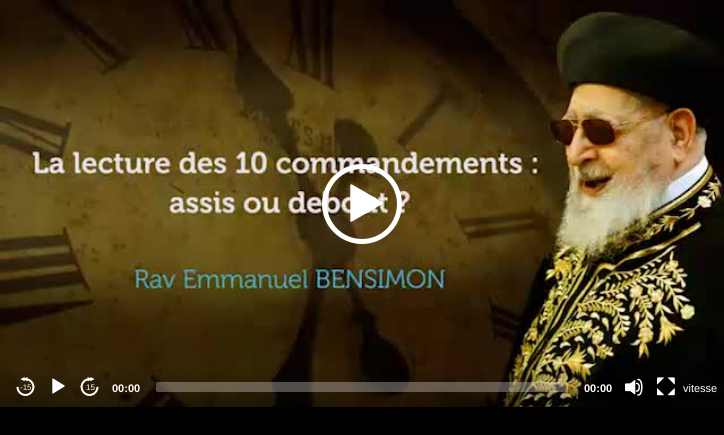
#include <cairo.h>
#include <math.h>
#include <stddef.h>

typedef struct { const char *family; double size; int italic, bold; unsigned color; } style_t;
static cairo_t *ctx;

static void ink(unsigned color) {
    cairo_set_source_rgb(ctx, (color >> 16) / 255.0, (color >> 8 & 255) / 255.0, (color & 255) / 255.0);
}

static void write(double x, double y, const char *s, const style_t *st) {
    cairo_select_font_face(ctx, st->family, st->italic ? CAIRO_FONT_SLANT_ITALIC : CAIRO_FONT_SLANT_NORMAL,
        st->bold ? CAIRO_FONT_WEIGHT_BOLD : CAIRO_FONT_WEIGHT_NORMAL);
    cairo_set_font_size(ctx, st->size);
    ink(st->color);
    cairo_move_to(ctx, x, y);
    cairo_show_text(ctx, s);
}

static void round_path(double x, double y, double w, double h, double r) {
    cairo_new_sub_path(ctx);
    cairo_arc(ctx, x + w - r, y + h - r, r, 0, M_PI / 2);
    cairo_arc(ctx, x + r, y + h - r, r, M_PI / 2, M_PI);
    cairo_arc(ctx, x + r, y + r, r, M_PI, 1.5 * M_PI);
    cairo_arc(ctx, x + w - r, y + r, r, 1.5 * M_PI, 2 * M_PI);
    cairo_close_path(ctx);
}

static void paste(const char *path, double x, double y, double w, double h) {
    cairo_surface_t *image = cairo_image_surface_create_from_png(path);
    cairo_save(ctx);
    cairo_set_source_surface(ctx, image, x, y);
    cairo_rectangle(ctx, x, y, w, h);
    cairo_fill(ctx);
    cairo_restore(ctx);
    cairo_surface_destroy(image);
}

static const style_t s1 = {"Liberation Sans", 8, 0, 0, 0xffffff};
static const style_t s2 = {"Liberation Sans", 11, 0, 1, 0xffffff};
static const style_t s3 = {"Liberation Sans", 11, 0, 0, 0xffffff};

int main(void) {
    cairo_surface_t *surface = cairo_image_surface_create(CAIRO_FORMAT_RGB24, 724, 435);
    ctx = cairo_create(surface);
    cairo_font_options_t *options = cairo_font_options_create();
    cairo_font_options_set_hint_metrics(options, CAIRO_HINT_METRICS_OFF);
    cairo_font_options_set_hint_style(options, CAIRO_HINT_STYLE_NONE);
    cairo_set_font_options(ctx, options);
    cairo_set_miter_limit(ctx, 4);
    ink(0x000000);
    cairo_paint(ctx);
    paste("pic1.png", 0, 0, 724, 407);
    paste("pic2.png", 322, 164, 80, 80);
    paste("pic3.png", 16, 377, 19, 19);
    write(20, 390, "-15", &s1);
    paste("pic4.png", 52, 378, 13, 16);
    paste("pic5.png", 80, 377, 19, 19);
    write(86, 390, "15", &s1);
    write(112, 392, "00:00", &s2);
    cairo_set_source_rgba(ctx, 1, 1, 1, 0.3);
    round_path(156, 382, 412, 10, 2);
    cairo_fill(ctx);
    write(584, 392, "00:00", &s2);
    paste("pic6.png", 625, 378, 18, 18);
    paste("pic7.png", 657, 377, 18, 19);
    write(683, 392, "vitesse", &s3);
    cairo_surface_write_to_png(surface, "screenshot.png");
    cairo_font_options_destroy(options);
    cairo_destroy(ctx);
    cairo_surface_destroy(surface);
    return 0;
}
